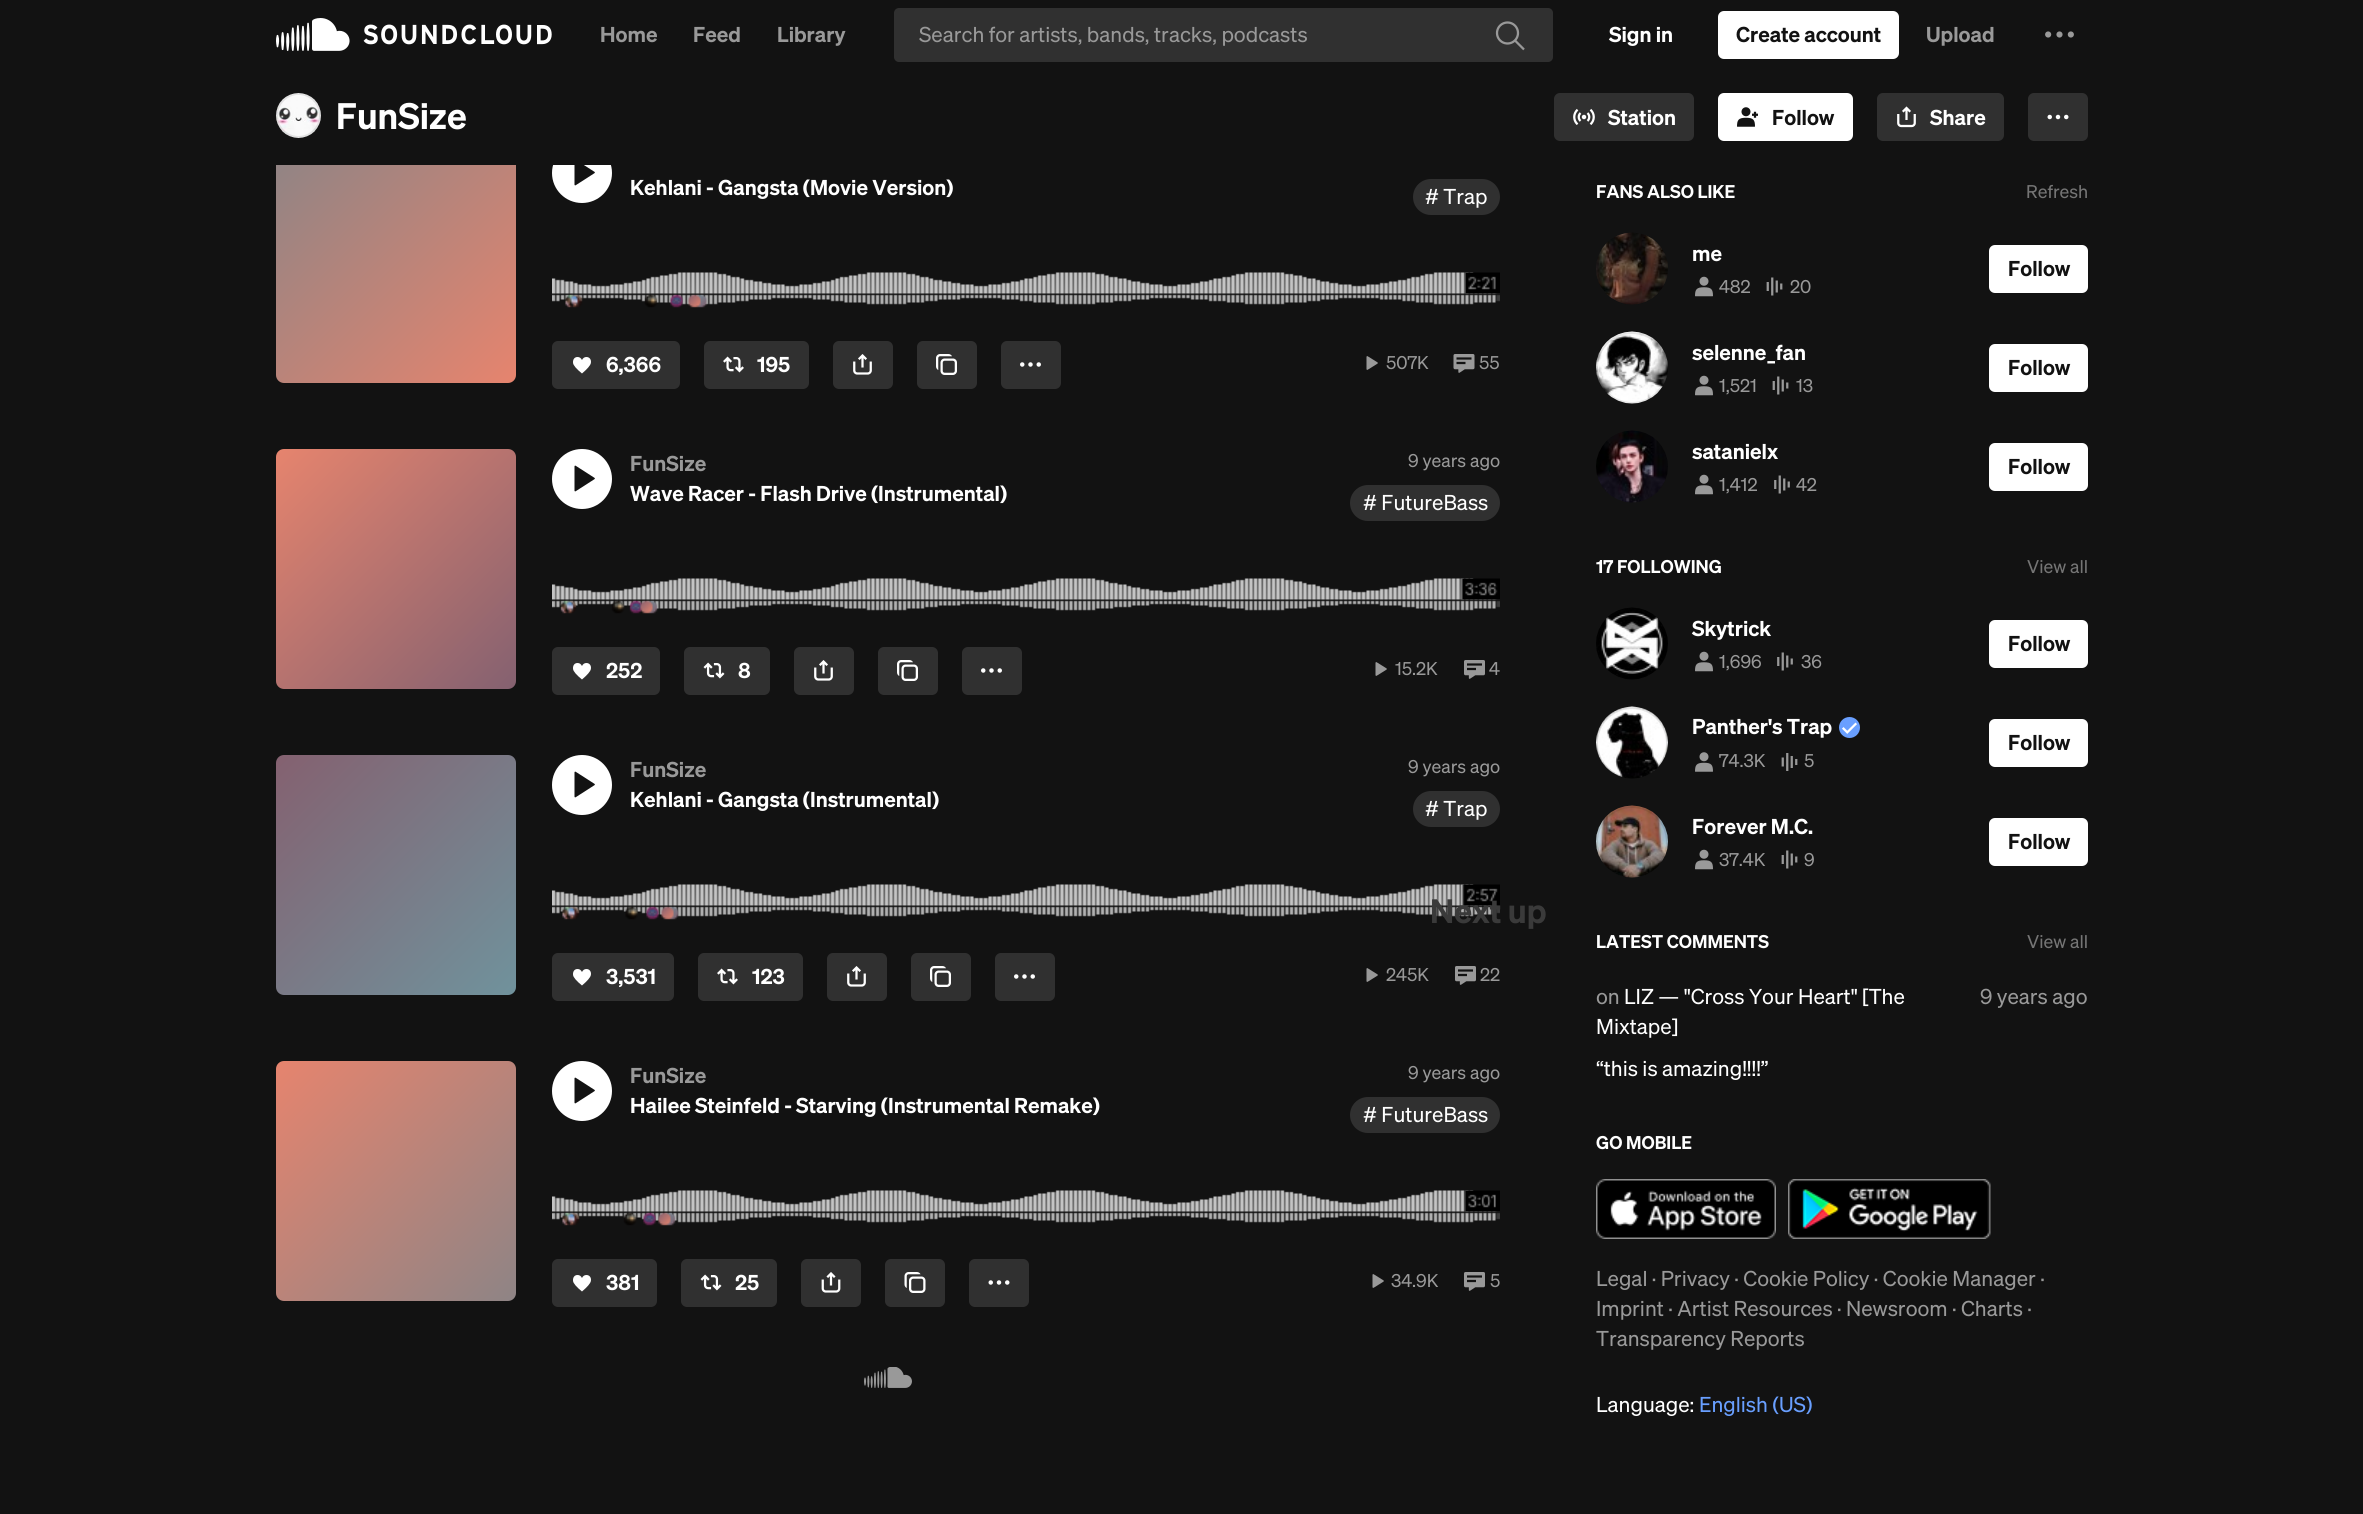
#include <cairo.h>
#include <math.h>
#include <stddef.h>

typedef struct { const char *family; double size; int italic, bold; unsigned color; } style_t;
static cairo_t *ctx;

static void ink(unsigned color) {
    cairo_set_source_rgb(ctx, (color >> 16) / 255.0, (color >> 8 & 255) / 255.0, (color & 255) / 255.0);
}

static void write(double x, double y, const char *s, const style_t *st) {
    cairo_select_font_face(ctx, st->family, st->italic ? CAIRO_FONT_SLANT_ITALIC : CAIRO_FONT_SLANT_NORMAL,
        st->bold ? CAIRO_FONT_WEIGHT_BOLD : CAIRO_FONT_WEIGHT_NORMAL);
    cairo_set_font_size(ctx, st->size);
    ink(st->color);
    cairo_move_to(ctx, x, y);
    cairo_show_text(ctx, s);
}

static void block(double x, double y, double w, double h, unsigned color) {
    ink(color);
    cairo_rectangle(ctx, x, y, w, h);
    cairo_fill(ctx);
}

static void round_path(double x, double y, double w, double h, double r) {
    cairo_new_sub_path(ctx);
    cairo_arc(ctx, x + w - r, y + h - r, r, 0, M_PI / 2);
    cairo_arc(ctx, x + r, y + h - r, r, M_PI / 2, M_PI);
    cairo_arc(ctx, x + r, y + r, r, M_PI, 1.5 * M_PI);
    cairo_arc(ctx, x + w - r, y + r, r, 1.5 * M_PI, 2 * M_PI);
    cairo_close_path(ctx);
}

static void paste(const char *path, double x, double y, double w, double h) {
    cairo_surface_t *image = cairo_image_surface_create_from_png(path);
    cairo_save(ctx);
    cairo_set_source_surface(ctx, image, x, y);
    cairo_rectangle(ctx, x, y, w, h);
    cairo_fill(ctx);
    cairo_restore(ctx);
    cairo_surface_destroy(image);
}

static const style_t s1 = {"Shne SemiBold", 21, 0, 0, 0x999999};
static const style_t s2 = {"Shne", 21, 0, 0, 0x999999};
static const style_t s3 = {"Shne SemiBold", 21, 0, 0, 0xffffff};
static const style_t s4 = {"Shne SemiBold", 21, 0, 0, 0x121212};
static const style_t s5 = {"Shne SemiBold", 36, 0, 0, 0xffffff};
static const style_t s6 = {"Shne", 21, 0, 0, 0xffffff};
static const style_t s7 = {"Shne", 18, 0, 0, 0x999999};
static const style_t s8 = {"Shne SemiBold", 18, 0, 0, 0xffffff};
static const style_t s9 = {"Shne", 18, 0, 0, 0x757575};
static const style_t s10 = {"Shne", 21, 0, 0, 0x699fff};
static const style_t s11 = {"Shne SemiBold", 33, 0, 0, 0x3a3a3a};

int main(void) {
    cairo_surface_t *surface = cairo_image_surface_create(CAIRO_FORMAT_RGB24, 2363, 1514);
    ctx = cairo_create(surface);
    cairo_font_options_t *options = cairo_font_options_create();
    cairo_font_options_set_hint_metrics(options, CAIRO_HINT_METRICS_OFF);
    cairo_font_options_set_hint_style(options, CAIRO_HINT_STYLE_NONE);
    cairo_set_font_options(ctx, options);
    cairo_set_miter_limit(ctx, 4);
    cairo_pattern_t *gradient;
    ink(0x121212);
    cairo_paint(ctx);
    paste("pic1.png", 276, 18, 276, 33);
    write(600, 42, "Home", &s1);
    write(693, 42, "Feed", &s1);
    write(777, 42, "Library", &s1);
    ink(0x303030);
    round_path(894, 8, 659, 54, 5);
    cairo_fill(ctx);
    write(919, 42, "Search for artists, bands, tracks, podcasts", &s2);
    paste("pic2.png", 1495, 21, 30, 30);
    write(1609, 42, "Sign in", &s3);
    round_path(1718, 11, 181, 48, 6);
    cairo_fill(ctx);
    write(1736, 42, "Create account", &s4);
    write(1926, 42, "Upload", &s1);
    paste("pic3.png", 2045, 31, 29, 7);
    gradient = cairo_pattern_create_linear(276, 143, 516, 383);
    cairo_pattern_add_color_stop_rgba(gradient, 0, 0.557, 0.518, 0.522, 1);
    cairo_pattern_add_color_stop_rgba(gradient, 1, 0.902, 0.518, 0.431, 1);
    cairo_set_source(ctx, gradient);
    cairo_pattern_destroy(gradient);
    round_path(276, 143, 240, 240, 8);
    cairo_fill(ctx);
    ink(0xffffff);
    cairo_arc(ctx, 582, 173, 30, 0, 2 * M_PI);
    cairo_fill(ctx);
    block(276, 143, 335, 22, 0x121212);
    paste("pic4.png", 276, 93, 45, 45);
    cairo_arc(ctx, 298.5, 115.5, 21.5, 0, 2 * M_PI);
    cairo_set_source_rgba(ctx, 0.071, 0.071, 0.071, 0.1);
    cairo_stroke(ctx);
    write(336, 129, "FunSize", &s5);
    ink(0x303030);
    round_path(1554, 93, 140, 48, 6);
    cairo_fill(ctx);
    paste("pic5.png", 1573, 108, 22, 17);
    write(1608, 125, "Station", &s3);
    round_path(1718, 93, 135, 48, 6);
    cairo_fill(ctx);
    paste("pic6.png", 1737, 107, 21, 20);
    write(1772, 125, "Follow", &s4);
    ink(0x303030);
    round_path(1877, 93, 127, 48, 6);
    cairo_fill(ctx);
    paste("pic7.png", 1897, 106, 19, 22);
    write(1930, 125, "Share", &s3);
    ink(0x303030);
    round_path(2028, 93, 60, 48, 6);
    cairo_fill(ctx);
    paste("pic8.png", 2047, 114, 22, 6);
    paste("pic9.png", 574, 165, 21, 21);
    write(630, 195, "Kehlani - Gangsta (Movie Version)", &s3);
    ink(0x303030);
    round_path(1413, 179, 87, 36, 18);
    cairo_fill(ctx);
    write(1425, 204, "# Trap", &s6);
    paste("pic10.png", 552, 272, 948, 33);
    paste("pic11.png", 1464, 272, 36, 22);
    paste("pic12.png", 565, 294, 142, 14);
    ink(0x303030);
    round_path(552, 341, 128, 48, 6);
    cairo_fill(ctx);
    paste("pic13.png", 573, 357, 18, 17);
    write(606, 372, "6,366", &s3);
    ink(0x303030);
    round_path(704, 341, 105, 48, 6);
    cairo_fill(ctx);
    paste("pic14.png", 723, 356, 21, 17);
    write(757, 372, "195", &s3);
    ink(0x303030);
    round_path(833, 341, 60, 48, 6);
    cairo_fill(ctx);
    paste("pic15.png", 853, 354, 19, 21);
    round_path(917, 341, 60, 48, 6);
    cairo_fill(ctx);
    paste("pic16.png", 936, 354, 21, 21);
    round_path(1001, 341, 60, 48, 6);
    cairo_fill(ctx);
    paste("pic17.png", 1020, 362, 21, 5);
    paste("pic18.png", 1366, 356, 12, 14);
    write(1386, 369, "507K", &s7);
    paste("pic19.png", 1453, 354, 22, 19);
    write(1479, 369, "55", &s7);
    gradient = cairo_pattern_create_linear(276, 449, 516, 689);
    cairo_pattern_add_color_stop_rgba(gradient, 0, 0.902, 0.518, 0.431, 1);
    cairo_pattern_add_color_stop_rgba(gradient, 1, 0.518, 0.38, 0.439, 1);
    cairo_set_source(ctx, gradient);
    cairo_pattern_destroy(gradient);
    round_path(276, 449, 240, 240, 8);
    cairo_fill(ctx);
    ink(0xffffff);
    cairo_arc(ctx, 582, 479, 30, 0, 2 * M_PI);
    cairo_fill(ctx);
    paste("pic20.png", 574, 465, 21, 27);
    write(630, 471, "FunSize", &s1);
    write(630, 501, "Wave Racer - Flash Drive (Instrumental)", &s3);
    write(1408, 467, "9 years ago", &s7);
    ink(0x303030);
    round_path(1350, 485, 150, 36, 18);
    cairo_fill(ctx);
    write(1363, 510, "# FutureBass", &s6);
    paste("pic10.png", 552, 578, 948, 33);
    paste("pic21.png", 1460, 578, 40, 22);
    paste("pic22.png", 560, 600, 98, 14);
    ink(0x303030);
    round_path(552, 647, 108, 48, 6);
    cairo_fill(ctx);
    paste("pic13.png", 573, 663, 18, 17);
    write(606, 678, "252", &s3);
    ink(0x303030);
    round_path(684, 647, 86, 48, 6);
    cairo_fill(ctx);
    paste("pic23.png", 703, 662, 22, 17);
    write(738, 678, "8", &s3);
    ink(0x303030);
    round_path(794, 647, 60, 48, 6);
    cairo_fill(ctx);
    paste("pic15.png", 814, 660, 19, 21);
    round_path(878, 647, 60, 48, 6);
    cairo_fill(ctx);
    paste("pic16.png", 897, 660, 21, 21);
    round_path(962, 647, 60, 48, 6);
    cairo_fill(ctx);
    paste("pic17.png", 981, 668, 21, 5);
    paste("pic18.png", 1375, 662, 12, 14);
    write(1395, 675, "15.2K", &s7);
    paste("pic24.png", 1464, 660, 21, 19);
    write(1489, 675, "4", &s7);
    gradient = cairo_pattern_create_linear(276, 755, 516, 995);
    cairo_pattern_add_color_stop_rgba(gradient, 0, 0.518, 0.38, 0.439, 1);
    cairo_pattern_add_color_stop_rgba(gradient, 1, 0.439, 0.573, 0.612, 1);
    cairo_set_source(ctx, gradient);
    cairo_pattern_destroy(gradient);
    round_path(276, 755, 240, 240, 8);
    cairo_fill(ctx);
    ink(0xffffff);
    cairo_arc(ctx, 582, 785, 30, 0, 2 * M_PI);
    cairo_fill(ctx);
    paste("pic20.png", 574, 771, 21, 27);
    write(630, 777, "FunSize", &s1);
    write(630, 807, "Kehlani - Gangsta (Instrumental)", &s3);
    write(1408, 773, "9 years ago", &s7);
    ink(0x303030);
    round_path(1413, 791, 87, 36, 18);
    cairo_fill(ctx);
    write(1425, 816, "# Trap", &s6);
    paste("pic10.png", 552, 884, 948, 33);
    paste("pic25.png", 1462, 884, 38, 22);
    paste("pic26.png", 562, 906, 117, 14);
    ink(0x303030);
    round_path(552, 953, 122, 48, 6);
    cairo_fill(ctx);
    paste("pic13.png", 573, 969, 18, 17);
    write(606, 984, "3,531", &s3);
    ink(0x303030);
    round_path(698, 953, 105, 48, 6);
    cairo_fill(ctx);
    paste("pic14.png", 717, 968, 21, 17);
    write(752, 984, "123", &s3);
    ink(0x303030);
    round_path(827, 953, 60, 48, 6);
    cairo_fill(ctx);
    paste("pic15.png", 847, 966, 19, 21);
    round_path(911, 953, 60, 48, 6);
    cairo_fill(ctx);
    paste("pic16.png", 930, 966, 21, 21);
    round_path(995, 953, 60, 48, 6);
    cairo_fill(ctx);
    paste("pic17.png", 1014, 974, 21, 5);
    paste("pic18.png", 1366, 968, 12, 14);
    write(1386, 981, "245K", &s7);
    paste("pic24.png", 1455, 966, 21, 19);
    write(1480, 981, "22", &s7);
    gradient = cairo_pattern_create_linear(276, 1061, 516, 1301);
    cairo_pattern_add_color_stop_rgba(gradient, 0, 0.902, 0.518, 0.431, 1);
    cairo_pattern_add_color_stop_rgba(gradient, 1, 0.557, 0.518, 0.522, 1);
    cairo_set_source(ctx, gradient);
    cairo_pattern_destroy(gradient);
    round_path(276, 1061, 240, 240, 8);
    cairo_fill(ctx);
    ink(0xffffff);
    cairo_arc(ctx, 582, 1091, 30, 0, 2 * M_PI);
    cairo_fill(ctx);
    paste("pic20.png", 574, 1077, 21, 27);
    write(630, 1083, "FunSize", &s1);
    write(630, 1113, "Hailee Steinfeld - Starving (Instrumental Remake)", &s3);
    write(1408, 1079, "9 years ago", &s7);
    ink(0x303030);
    round_path(1350, 1097, 150, 36, 18);
    cairo_fill(ctx);
    write(1363, 1122, "# FutureBass", &s6);
    paste("pic10.png", 552, 1190, 948, 33);
    paste("pic27.png", 1463, 1190, 37, 22);
    paste("pic28.png", 562, 1212, 114, 14);
    ink(0x303030);
    round_path(552, 1259, 105, 48, 6);
    cairo_fill(ctx);
    paste("pic13.png", 573, 1275, 18, 17);
    write(606, 1290, "381", &s3);
    ink(0x303030);
    round_path(681, 1259, 96, 48, 6);
    cairo_fill(ctx);
    paste("pic23.png", 700, 1274, 22, 17);
    write(735, 1290, "25", &s3);
    ink(0x303030);
    round_path(801, 1259, 60, 48, 6);
    cairo_fill(ctx);
    paste("pic29.png", 821, 1272, 20, 21);
    round_path(885, 1259, 60, 48, 6);
    cairo_fill(ctx);
    paste("pic30.png", 904, 1272, 22, 21);
    round_path(969, 1259, 60, 48, 6);
    cairo_fill(ctx);
    paste("pic31.png", 988, 1280, 22, 5);
    paste("pic18.png", 1372, 1274, 12, 14);
    write(1391, 1287, "34.9K", &s7);
    paste("pic24.png", 1464, 1272, 21, 19);
    write(1490, 1287, "5", &s7);
    paste("pic32.png", 864, 1367, 48, 21);
    write(1596, 198, "FANS ALSO LIKE", &s8);
    write(2026, 198, "Refresh", &s9);
    paste("pic33.png", 1596, 232, 72, 73);
    cairo_arc(ctx, 1632, 269, 35, 0, 2 * M_PI);
    cairo_set_source_rgba(ctx, 0.071, 0.071, 0.071, 0.1);
    cairo_stroke(ctx);
    write(1692, 261, "me", &s3);
    paste("pic34.png", 1695, 276, 18, 21);
    write(1719, 293, "482", &s7);
    paste("pic35.png", 1766, 277, 17, 19);
    write(1790, 293, "20", &s7);
    ink(0xffffff);
    round_path(1989, 245, 99, 48, 6);
    cairo_fill(ctx);
    write(2008, 276, "Follow", &s4);
    paste("pic36.png", 1596, 331, 72, 73);
    cairo_arc(ctx, 1632, 368, 35, 0, 2 * M_PI);
    cairo_set_source_rgba(ctx, 0.071, 0.071, 0.071, 0.1);
    cairo_stroke(ctx);
    write(1692, 360, "selenne_fan", &s3);
    paste("pic34.png", 1695, 375, 18, 21);
    write(1719, 392, "1,521", &s7);
    paste("pic35.png", 1772, 376, 17, 19);
    write(1796, 392, "13", &s7);
    ink(0xffffff);
    round_path(1989, 344, 99, 48, 6);
    cairo_fill(ctx);
    write(2008, 375, "Follow", &s4);
    paste("pic37.png", 1596, 430, 72, 73);
    write(1692, 459, "satanielx", &s3);
    paste("pic34.png", 1695, 474, 18, 21);
    write(1719, 491, "1,412", &s7);
    paste("pic38.png", 1774, 475, 16, 19);
    write(1796, 491, "42", &s7);
    ink(0xffffff);
    round_path(1989, 443, 99, 48, 6);
    cairo_fill(ctx);
    write(2008, 474, "Follow", &s4);
    write(1596, 573, "17 FOLLOWING", &s8);
    write(2027, 573, "View all", &s9);
    paste("pic39.png", 1596, 607, 72, 73);
    cairo_arc(ctx, 1632, 644, 35, 0, 2 * M_PI);
    cairo_set_source_rgba(ctx, 0.071, 0.071, 0.071, 0.1);
    cairo_stroke(ctx);
    write(1692, 636, "Skytrick", &s3);
    paste("pic34.png", 1695, 651, 18, 21);
    write(1719, 668, "1,696", &s7);
    paste("pic38.png", 1777, 652, 16, 19);
    write(1801, 668, "36", &s7);
    ink(0xffffff);
    round_path(1989, 620, 99, 48, 6);
    cairo_fill(ctx);
    write(2008, 651, "Follow", &s4);
    paste("pic40.png", 1596, 706, 72, 73);
    cairo_arc(ctx, 1632, 743, 35, 0, 2 * M_PI);
    cairo_set_source_rgba(ctx, 0.071, 0.071, 0.071, 0.1);
    cairo_stroke(ctx);
    write(1692, 734, "Panther's Trap", &s3);
    paste("pic41.png", 1839, 717, 21, 21);
    paste("pic42.png", 1695, 752, 18, 20);
    write(1719, 767, "74.3K", &s7);
    paste("pic43.png", 1781, 753, 17, 18);
    write(1804, 767, "5", &s7);
    ink(0xffffff);
    round_path(1989, 719, 99, 48, 6);
    cairo_fill(ctx);
    write(2008, 750, "Follow", &s4);
    paste("pic44.png", 1596, 805, 72, 73);
    cairo_arc(ctx, 1632, 842, 35, 0, 2 * M_PI);
    cairo_set_source_rgba(ctx, 0.071, 0.071, 0.071, 0.1);
    cairo_stroke(ctx);
    write(1692, 834, "Forever M.C.", &s3);
    paste("pic34.png", 1695, 849, 18, 21);
    write(1719, 866, "37.4K", &s7);
    paste("pic35.png", 1781, 850, 17, 19);
    write(1804, 866, "9", &s7);
    ink(0xffffff);
    round_path(1989, 818, 99, 48, 6);
    cairo_fill(ctx);
    write(2008, 849, "Follow", &s4);
    write(1596, 948, "LATEST COMMENTS", &s8);
    write(2027, 948, "View all", &s9);
    write(1596, 1004, "on", &s2);
    write(1624, 1004, "LIZ — \"Cross Your Heart\" [The", &s6);
    write(1596, 1034, "Mixtape]", &s6);
    write(1980, 1004, "9 years ago", &s2);
    write(1596, 1076, "“this is amazing!!!!”", &s6);
    write(1596, 1149, "GO MOBILE", &s8);
    paste("pic45.png", 1596, 1179, 180, 60);
    paste("pic46.png", 1788, 1179, 203, 60);
    write(1596, 1286, "Legal · Privacy · Cookie Policy · Cookie Manager ·", &s2);
    write(1596, 1316, "Imprint · Artist Resources · Newsroom · Charts ·", &s2);
    write(1596, 1346, "Transparency Reports", &s2);
    write(1596, 1412, "Language:", &s6);
    write(1699, 1412, "English (US)", &s10);
    write(1430, 923, "Next up", &s11);
    cairo_surface_write_to_png(surface, "screenshot.png");
    cairo_font_options_destroy(options);
    cairo_destroy(ctx);
    cairo_surface_destroy(surface);
    return 0;
}
